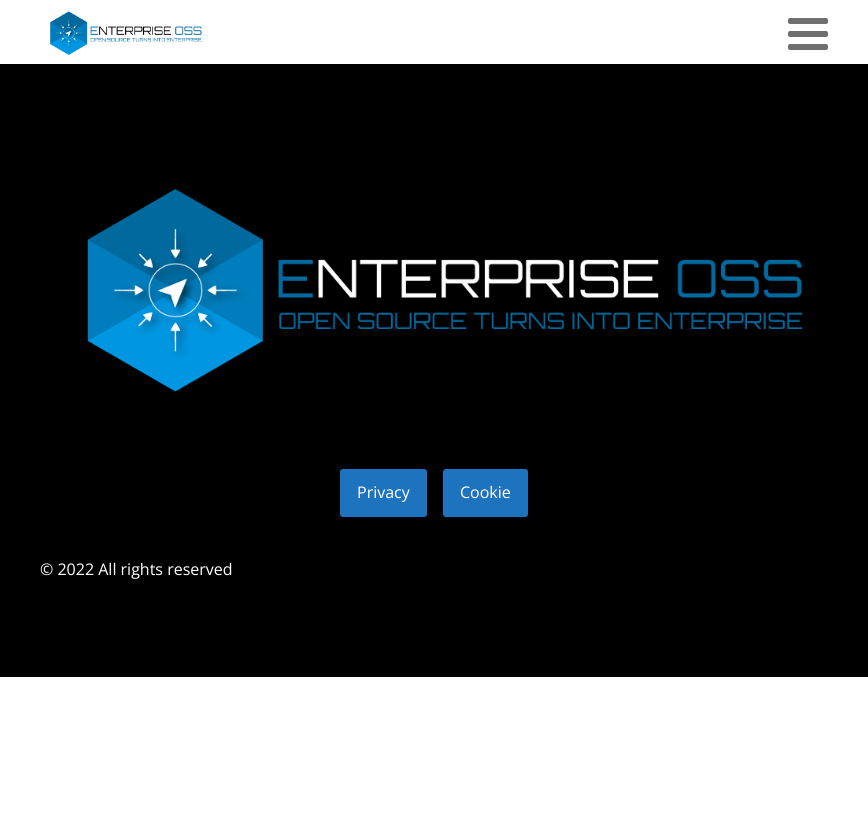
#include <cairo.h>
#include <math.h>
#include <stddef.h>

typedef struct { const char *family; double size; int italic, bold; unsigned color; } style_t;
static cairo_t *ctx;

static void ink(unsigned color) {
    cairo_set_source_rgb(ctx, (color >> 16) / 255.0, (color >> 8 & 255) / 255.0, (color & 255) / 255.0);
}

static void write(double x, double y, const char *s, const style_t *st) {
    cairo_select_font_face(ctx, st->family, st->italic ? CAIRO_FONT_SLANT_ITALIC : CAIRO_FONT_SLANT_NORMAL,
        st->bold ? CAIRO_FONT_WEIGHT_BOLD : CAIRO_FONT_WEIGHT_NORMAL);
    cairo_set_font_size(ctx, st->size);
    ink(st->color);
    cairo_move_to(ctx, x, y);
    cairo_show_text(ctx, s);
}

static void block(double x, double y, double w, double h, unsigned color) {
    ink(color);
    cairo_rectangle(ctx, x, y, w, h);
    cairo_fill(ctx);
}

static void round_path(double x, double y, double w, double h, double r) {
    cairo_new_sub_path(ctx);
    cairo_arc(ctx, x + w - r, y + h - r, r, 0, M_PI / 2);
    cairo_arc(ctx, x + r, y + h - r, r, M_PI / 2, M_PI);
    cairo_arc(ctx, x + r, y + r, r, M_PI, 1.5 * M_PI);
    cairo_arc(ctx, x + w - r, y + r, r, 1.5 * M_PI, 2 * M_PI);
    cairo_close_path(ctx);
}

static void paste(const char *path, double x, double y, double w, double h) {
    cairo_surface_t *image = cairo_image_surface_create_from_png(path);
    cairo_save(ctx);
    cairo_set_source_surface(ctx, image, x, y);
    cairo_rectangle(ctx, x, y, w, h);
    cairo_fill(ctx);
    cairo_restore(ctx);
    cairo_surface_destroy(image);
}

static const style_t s1 = {"Open Sans", 16, 0, 0, 0xffffff};

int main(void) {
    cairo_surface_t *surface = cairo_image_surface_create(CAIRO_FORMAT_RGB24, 868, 815);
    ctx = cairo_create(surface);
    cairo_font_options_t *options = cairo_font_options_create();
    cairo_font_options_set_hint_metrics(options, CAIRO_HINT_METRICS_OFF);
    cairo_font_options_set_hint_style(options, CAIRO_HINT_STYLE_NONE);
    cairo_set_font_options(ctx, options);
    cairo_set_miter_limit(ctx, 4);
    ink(0xffffff);
    cairo_paint(ctx);
    paste("pic1.png", 50, 11, 152, 44);
    ink(0x707070);
    round_path(788, 18, 40, 6, 2);
    cairo_fill(ctx);
    round_path(788, 31, 40, 6, 2);
    cairo_fill(ctx);
    round_path(788, 44, 40, 6, 2);
    cairo_fill(ctx);
    block(0, 64, 868, 613, 0x000000);
    paste("pic2.png", 87, 189, 716, 203);
    ink(0x1e73be);
    round_path(340.5, 469.5, 86, 47, 2.5);
    cairo_fill_preserve(ctx);
    cairo_set_line_width(ctx, 1);
    cairo_stroke(ctx);
    write(357, 498, "Privacy", &s1);
    ink(0x1e73be);
    round_path(443.5, 469.5, 84, 47, 2.5);
    cairo_fill_preserve(ctx);
    cairo_stroke(ctx);
    write(460, 498, "Cookie", &s1);
    write(40, 575, "© 2022 All rights reserved", &s1);
    cairo_surface_write_to_png(surface, "screenshot.png");
    cairo_font_options_destroy(options);
    cairo_destroy(ctx);
    cairo_surface_destroy(surface);
    return 0;
}
